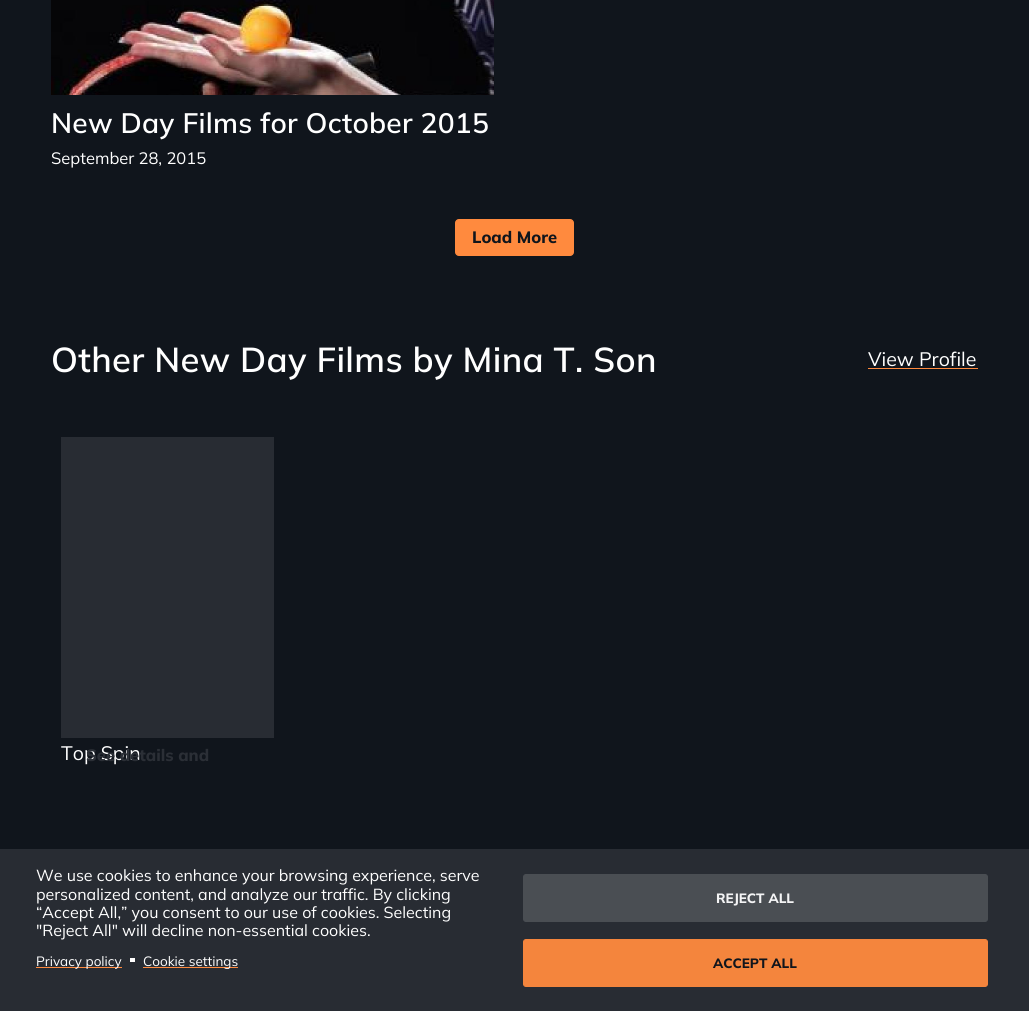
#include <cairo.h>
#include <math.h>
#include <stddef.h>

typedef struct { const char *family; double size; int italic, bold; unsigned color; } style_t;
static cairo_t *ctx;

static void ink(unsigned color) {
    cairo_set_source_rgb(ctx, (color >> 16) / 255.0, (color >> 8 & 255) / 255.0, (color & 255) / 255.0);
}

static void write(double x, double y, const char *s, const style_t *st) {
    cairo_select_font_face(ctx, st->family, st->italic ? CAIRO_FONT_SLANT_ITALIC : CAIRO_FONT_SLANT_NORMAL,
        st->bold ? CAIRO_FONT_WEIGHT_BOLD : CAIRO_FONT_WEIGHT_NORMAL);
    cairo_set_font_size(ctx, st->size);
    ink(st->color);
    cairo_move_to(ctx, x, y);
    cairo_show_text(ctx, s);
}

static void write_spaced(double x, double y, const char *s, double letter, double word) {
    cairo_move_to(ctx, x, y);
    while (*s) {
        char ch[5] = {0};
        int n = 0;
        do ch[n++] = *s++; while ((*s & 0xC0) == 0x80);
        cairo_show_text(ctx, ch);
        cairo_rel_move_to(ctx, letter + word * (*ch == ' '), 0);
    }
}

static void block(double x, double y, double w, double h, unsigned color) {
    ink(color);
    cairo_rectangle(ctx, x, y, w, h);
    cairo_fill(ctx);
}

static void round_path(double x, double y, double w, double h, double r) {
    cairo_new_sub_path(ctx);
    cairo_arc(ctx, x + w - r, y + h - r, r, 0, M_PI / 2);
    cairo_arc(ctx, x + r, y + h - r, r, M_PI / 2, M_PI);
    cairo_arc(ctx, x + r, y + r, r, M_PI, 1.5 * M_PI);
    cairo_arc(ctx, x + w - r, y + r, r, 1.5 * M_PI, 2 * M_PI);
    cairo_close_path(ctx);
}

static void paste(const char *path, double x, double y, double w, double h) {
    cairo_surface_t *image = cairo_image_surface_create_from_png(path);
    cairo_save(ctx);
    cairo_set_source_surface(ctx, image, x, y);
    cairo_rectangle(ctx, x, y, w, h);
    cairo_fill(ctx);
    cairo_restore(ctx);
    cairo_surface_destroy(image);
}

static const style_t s1 = {"Mulish", 16.5, 0, 0, 0xffffff};
static const style_t s2 = {"Mulish ExtraBold", 16.5, 0, 0, 0x10151c};
static const style_t s3 = {"Mulish", 19.5, 0, 0, 0xffffff};
static const style_t s4 = {"Mulish ExtraBold", 16.5, 0, 0, 0x2b2f36};
static const style_t s5 = {"Mulish", 16, 0, 0, 0xffffff};
static const style_t s6 = {"Mulish", 13.5, 0, 0, 0xffffff};
static const style_t s7 = {"Mulish ExtraBold", 13.5, 0, 0, 0xf4f4f5};
static const style_t s8 = {"Mulish ExtraBold", 13.5, 0, 0, 0x10151c};

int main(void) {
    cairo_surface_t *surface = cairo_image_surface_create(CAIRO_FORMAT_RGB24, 1029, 1011);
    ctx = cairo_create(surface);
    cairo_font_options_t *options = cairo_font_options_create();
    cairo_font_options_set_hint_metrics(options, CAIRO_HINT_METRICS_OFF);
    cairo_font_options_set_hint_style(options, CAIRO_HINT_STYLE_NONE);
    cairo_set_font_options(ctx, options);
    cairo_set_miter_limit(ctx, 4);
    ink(0x10151c);
    cairo_paint(ctx);
    paste("pic1.png", 51, 0, 443, 95);
    cairo_select_font_face(ctx, "Mulish SemiBold", CAIRO_FONT_SLANT_NORMAL, CAIRO_FONT_WEIGHT_NORMAL);
    cairo_set_font_size(ctx, 28.1);
    ink(0xffffff);
    write_spaced(51, 133, "New Day Films for October 2015", 0.25, 0);
    write(51, 164, "September 28, 2015", &s1);
    ink(0xff8a3e);
    round_path(455.5, 219.5, 118, 36, 3.5);
    cairo_fill_preserve(ctx);
    cairo_set_line_width(ctx, 1);
    cairo_stroke(ctx);
    write(472, 243, "Load More", &s2);
    cairo_select_font_face(ctx, "Mulish SemiBold", CAIRO_FONT_SLANT_NORMAL, CAIRO_FONT_WEIGHT_NORMAL);
    cairo_set_font_size(ctx, 34.6);
    ink(0xffffff);
    write_spaced(51, 372, "Other New Day Films by Mina T. Son", 0.35, 0);
    write(868, 366, "View Profile", &s3);
    block(868, 368, 110, 1, 0xff8a3e);
    block(61, 437, 213, 301, 0x282c33);
    write(61, 760, "Top Spin", &s3);
    write(86, 761, "See details and", &s4);
    block(0, 849, 1029, 162, 0x282c33);
    write(36, 881, "We use cookies to enhance your browsing experience, serve", &s5);
    write(36, 900, "personalized content, and analyze our traffic. By clicking", &s5);
    write(36, 918, "“Accept All,” you consent to our use of cookies. Selecting", &s5);
    write(36, 936, "\"Reject All\" will decline non-essential cookies.", &s5);
    block(36, 967, 86, 1, 0xff8a3e);
    write(36, 966, "Privacy policy", &s6);
    block(130, 958, 5, 4, 0xffffff);
    block(143, 967, 95, 1, 0xff8a3e);
    write(143, 966, "Cookie settings", &s6);
    ink(0x4a4e53);
    round_path(523.5, 874.5, 464, 47, 2.5);
    cairo_fill_preserve(ctx);
    cairo_stroke(ctx);
    write(716, 903, "REJECT ALL", &s7);
    ink(0xf4853d);
    round_path(523.5, 939.5, 464, 47, 2.5);
    cairo_fill_preserve(ctx);
    cairo_stroke(ctx);
    write(713, 968, "ACCEPT ALL", &s8);
    cairo_surface_write_to_png(surface, "screenshot.png");
    cairo_font_options_destroy(options);
    cairo_destroy(ctx);
    cairo_surface_destroy(surface);
    return 0;
}
